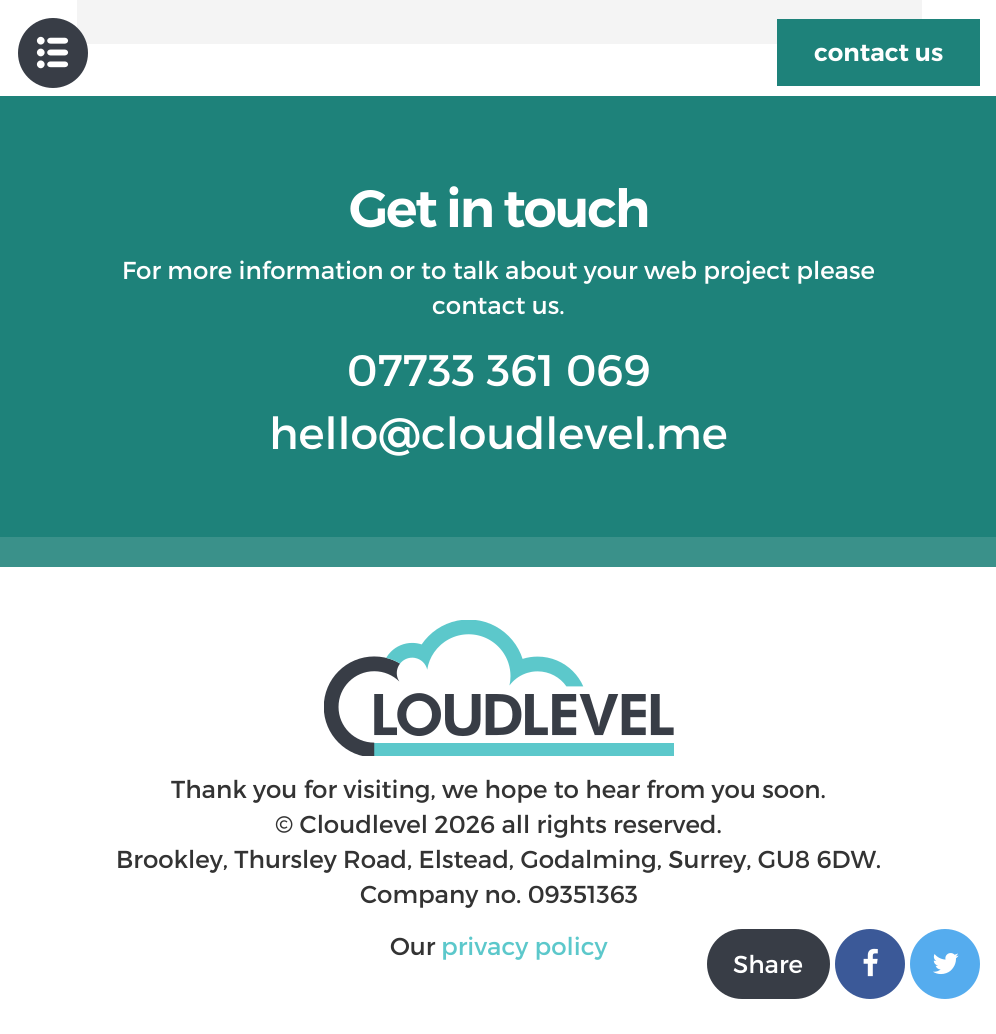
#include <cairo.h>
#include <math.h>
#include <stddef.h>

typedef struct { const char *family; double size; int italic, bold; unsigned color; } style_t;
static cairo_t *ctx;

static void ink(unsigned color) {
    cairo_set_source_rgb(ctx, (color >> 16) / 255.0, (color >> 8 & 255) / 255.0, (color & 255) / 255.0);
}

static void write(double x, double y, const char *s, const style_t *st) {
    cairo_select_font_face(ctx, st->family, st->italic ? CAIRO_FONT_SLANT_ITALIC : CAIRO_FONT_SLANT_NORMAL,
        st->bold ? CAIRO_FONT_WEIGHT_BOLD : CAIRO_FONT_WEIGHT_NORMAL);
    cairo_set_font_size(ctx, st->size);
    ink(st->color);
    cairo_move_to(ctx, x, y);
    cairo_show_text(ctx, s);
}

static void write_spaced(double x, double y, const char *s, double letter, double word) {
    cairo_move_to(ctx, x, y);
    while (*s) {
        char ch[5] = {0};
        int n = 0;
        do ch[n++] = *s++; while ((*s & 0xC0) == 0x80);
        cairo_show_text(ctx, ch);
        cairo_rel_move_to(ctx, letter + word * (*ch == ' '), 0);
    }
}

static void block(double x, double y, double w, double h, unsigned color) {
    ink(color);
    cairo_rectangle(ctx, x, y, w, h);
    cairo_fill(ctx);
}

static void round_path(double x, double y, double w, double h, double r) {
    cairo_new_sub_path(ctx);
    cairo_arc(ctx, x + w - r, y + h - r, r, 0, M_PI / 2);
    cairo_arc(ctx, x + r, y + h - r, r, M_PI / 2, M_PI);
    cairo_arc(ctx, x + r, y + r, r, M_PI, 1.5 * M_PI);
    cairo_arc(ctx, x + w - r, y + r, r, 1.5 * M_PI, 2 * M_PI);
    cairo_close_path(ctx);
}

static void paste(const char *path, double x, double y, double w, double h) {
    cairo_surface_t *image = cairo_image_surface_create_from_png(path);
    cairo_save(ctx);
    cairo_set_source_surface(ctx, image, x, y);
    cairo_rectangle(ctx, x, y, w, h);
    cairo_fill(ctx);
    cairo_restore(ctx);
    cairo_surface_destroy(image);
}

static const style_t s1 = {"Montserrat SemiBold", 24.5, 0, 0, 0xffffff};
static const style_t s2 = {"Montserrat", 24.5, 0, 0, 0xffffff};
static const style_t s3 = {"Montserrat", 44.1, 0, 0, 0xffffff};
static const style_t s4 = {"Montserrat", 24.5, 0, 0, 0x333333};
static const style_t s5 = {"Montserrat", 24.5, 0, 0, 0x5cc8cb};

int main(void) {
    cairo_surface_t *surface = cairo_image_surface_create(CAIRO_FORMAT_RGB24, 996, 1034);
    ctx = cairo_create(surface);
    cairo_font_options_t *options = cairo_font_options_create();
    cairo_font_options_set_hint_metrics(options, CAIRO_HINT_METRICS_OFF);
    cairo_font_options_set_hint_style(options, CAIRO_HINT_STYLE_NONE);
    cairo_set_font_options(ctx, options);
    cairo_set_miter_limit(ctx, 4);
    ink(0xffffff);
    cairo_paint(ctx);
    block(77, 0, 845, 44, 0xf4f4f4);
    ink(0x383d46);
    cairo_arc(ctx, 53, 53, 35, 0, 2 * M_PI);
    cairo_fill(ctx);
    paste("pic1.png", 36, 36, 33, 33);
    block(777, 19, 203, 67, 0x1e827a);
    write(814, 61, "contact us", &s1);
    block(0, 96, 996, 441, 0x1e827a);
    block(0, 537, 996, 30, 0x3a918a);
    cairo_set_font_size(ctx, 52.5);
    ink(0xffffff);
    write_spaced(349, 227, "Get in touch", -2.1, 0);
    write(122, 279, "For more information or to talk about your web project please", &s2);
    write(432, 314, "contact us.", &s2);
    write(347, 386, "07733 361 069", &s3);
    write(269, 449, "hello@cloudlevel.me", &s3);
    paste("pic2.png", 324, 620, 350, 136);
    write(171, 798, "Thank you for visiting, we hope to hear from you soon.", &s4);
    write(275, 833, "© Cloudlevel 2026 all rights reserved.", &s4);
    write(116, 868, "Brookley, Thursley Road, Elstead, Godalming, Surrey, GU8 6DW.", &s4);
    write(360, 903, "Company no. 09351363", &s4);
    write(390, 955, "Our", &s4);
    write(441, 955, "privacy policy", &s5);
    ink(0x383d46);
    round_path(707, 929, 123, 70, 35);
    cairo_fill(ctx);
    write(733, 973, "Share", &s2);
    ink(0x3b5998);
    cairo_new_path(ctx);
    cairo_arc(ctx, 870, 964, 35, 0, 2 * M_PI);
    cairo_fill(ctx);
    paste("pic3.png", 863, 948, 15, 29);
    ink(0x55acee);
    cairo_arc(ctx, 945, 964, 35, 0, 2 * M_PI);
    cairo_fill(ctx);
    paste("pic4.png", 933, 953, 26, 22);
    cairo_surface_write_to_png(surface, "screenshot.png");
    cairo_font_options_destroy(options);
    cairo_destroy(ctx);
    cairo_surface_destroy(surface);
    return 0;
}
